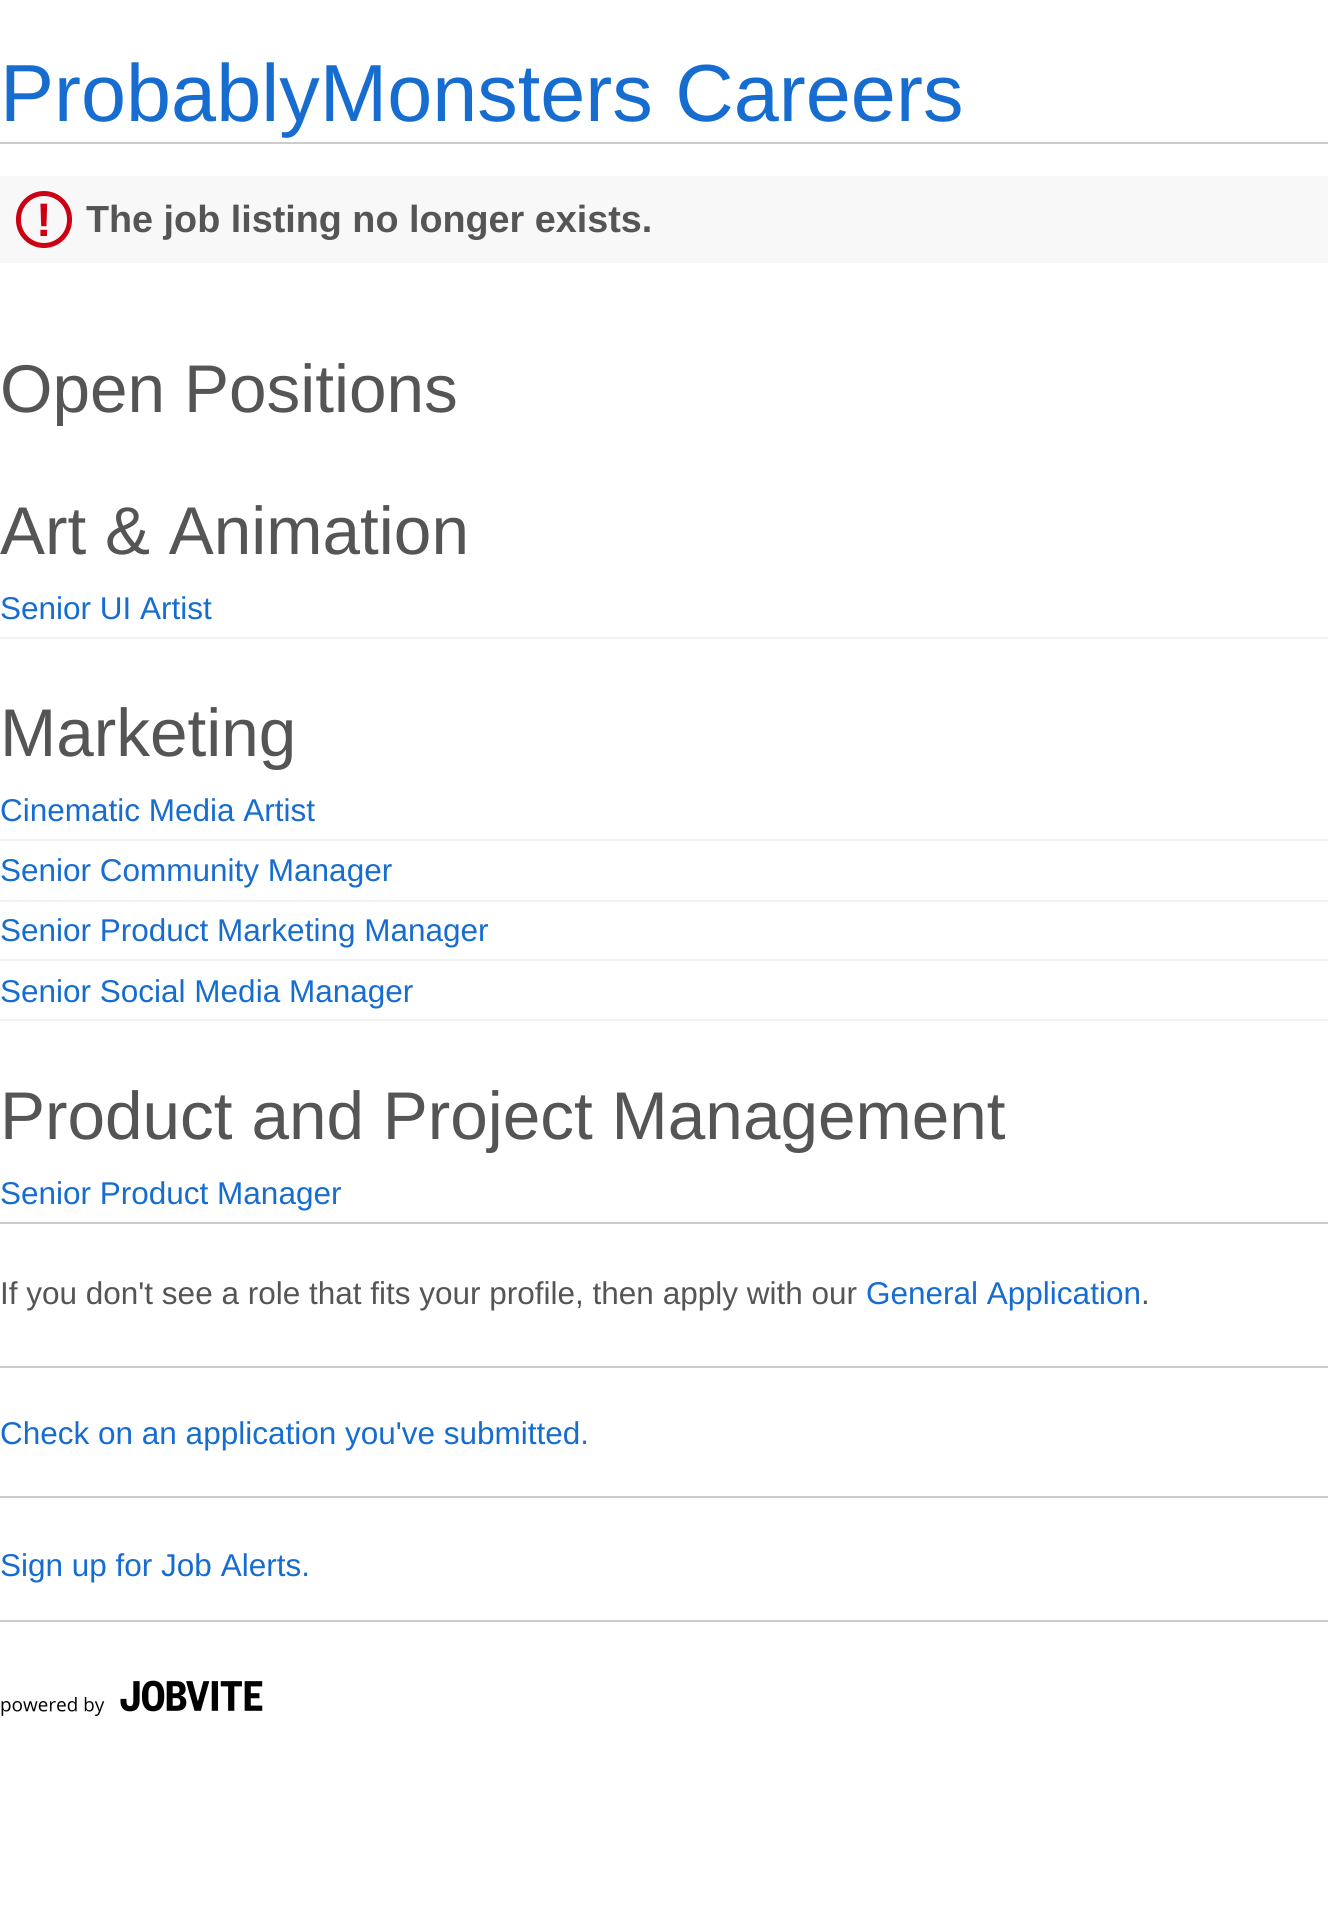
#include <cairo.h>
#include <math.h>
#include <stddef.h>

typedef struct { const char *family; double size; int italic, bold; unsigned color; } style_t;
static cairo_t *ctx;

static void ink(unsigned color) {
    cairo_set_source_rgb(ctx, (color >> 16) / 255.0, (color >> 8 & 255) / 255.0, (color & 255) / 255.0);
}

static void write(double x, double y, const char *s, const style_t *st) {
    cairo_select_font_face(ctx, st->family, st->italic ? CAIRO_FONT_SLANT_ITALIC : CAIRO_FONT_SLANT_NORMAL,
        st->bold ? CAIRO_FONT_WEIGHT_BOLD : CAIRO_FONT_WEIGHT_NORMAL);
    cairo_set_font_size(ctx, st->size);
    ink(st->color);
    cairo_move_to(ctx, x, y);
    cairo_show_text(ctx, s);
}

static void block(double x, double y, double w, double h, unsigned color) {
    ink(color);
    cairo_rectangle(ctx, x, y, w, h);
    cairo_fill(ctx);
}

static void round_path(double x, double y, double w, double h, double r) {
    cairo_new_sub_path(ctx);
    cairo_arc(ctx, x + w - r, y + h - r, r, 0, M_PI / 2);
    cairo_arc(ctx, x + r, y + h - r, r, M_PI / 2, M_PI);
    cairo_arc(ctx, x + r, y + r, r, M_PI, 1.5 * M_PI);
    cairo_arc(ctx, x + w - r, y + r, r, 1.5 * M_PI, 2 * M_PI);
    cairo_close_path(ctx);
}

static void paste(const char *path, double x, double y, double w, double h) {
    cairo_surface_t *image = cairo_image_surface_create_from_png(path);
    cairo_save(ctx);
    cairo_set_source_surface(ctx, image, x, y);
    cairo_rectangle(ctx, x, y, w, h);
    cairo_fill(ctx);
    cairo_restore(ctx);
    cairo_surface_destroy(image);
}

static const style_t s1 = {"Liberation Sans", 81, 0, 0, 0x176dcf};
static const style_t s2 = {"Liberation Sans", 47, 0, 1, 0xcb0013};
static const style_t s3 = {"Liberation Sans", 37.75, 0, 1, 0x555555};
static const style_t s4 = {"Liberation Sans", 67.5, 0, 0, 0x555555};
static const style_t s5 = {"Liberation Sans", 31.5, 0, 0, 0x176dcf};
static const style_t s6 = {"Liberation Sans", 31.5, 0, 0, 0x555555};

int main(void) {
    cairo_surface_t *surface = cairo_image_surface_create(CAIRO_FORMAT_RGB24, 1328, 1906);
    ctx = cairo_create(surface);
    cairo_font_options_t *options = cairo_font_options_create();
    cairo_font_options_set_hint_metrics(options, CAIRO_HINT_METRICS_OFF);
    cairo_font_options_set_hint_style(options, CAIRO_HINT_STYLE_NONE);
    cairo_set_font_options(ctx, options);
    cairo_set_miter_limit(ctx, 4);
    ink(0xffffff);
    cairo_paint(ctx);
    block(0, 142, 1328, 2, 0xcccccc);
    write(0, 121, "ProbablyMonsters Careers", &s1);
    block(0, 176, 1328, 87, 0xf8f8f8);
    round_path(18.5, 193.5, 51, 52, 25.5);
    ink(0xcb0013);
    cairo_set_line_width(ctx, 5);
    cairo_stroke(ctx);
    write(36, 236, "!", &s2);
    write(86, 232, "The job listing no longer exists.", &s3);
    write(0, 412, "Open Positions", &s4);
    write(0, 554, "Art & Animation", &s4);
    write(0, 619, "Senior UI Artist", &s5);
    block(0, 637, 1328, 2, 0xf2f2f2);
    write(0, 756, "Marketing", &s4);
    write(0, 821, "Cinematic Media Artist", &s5);
    block(0, 839, 1328, 2, 0xf2f2f2);
    write(0, 881, "Senior Community Manager", &s5);
    block(0, 900, 1328, 2, 0xf2f2f2);
    write(0, 941, "Senior Product Marketing Manager", &s5);
    block(0, 959, 1328, 2, 0xf2f2f2);
    write(0, 1002, "Senior Social Media Manager", &s5);
    block(0, 1019, 1328, 2, 0xf2f2f2);
    write(0, 1139, "Product and Project Management", &s4);
    write(0, 1204, "Senior Product Manager", &s5);
    block(0, 1222, 1328, 2, 0xcccccc);
    write(0, 1304, "If you don't see a role that fits your profile, then apply with our", &s6);
    write(866, 1304, "General Application", &s5);
    write(1141, 1304, ".", &s6);
    block(0, 1366, 1328, 2, 0xcccccc);
    write(0, 1444, "Check on an application you've submitted.", &s5);
    block(0, 1496, 1328, 2, 0xcccccc);
    write(0, 1576, "Sign up for Job Alerts.", &s5);
    block(0, 1620, 1328, 2, 0xcccccc);
    paste("pic1.png", 1, 1680, 262, 36);
    cairo_surface_write_to_png(surface, "screenshot.png");
    cairo_font_options_destroy(options);
    cairo_destroy(ctx);
    cairo_surface_destroy(surface);
    return 0;
}
